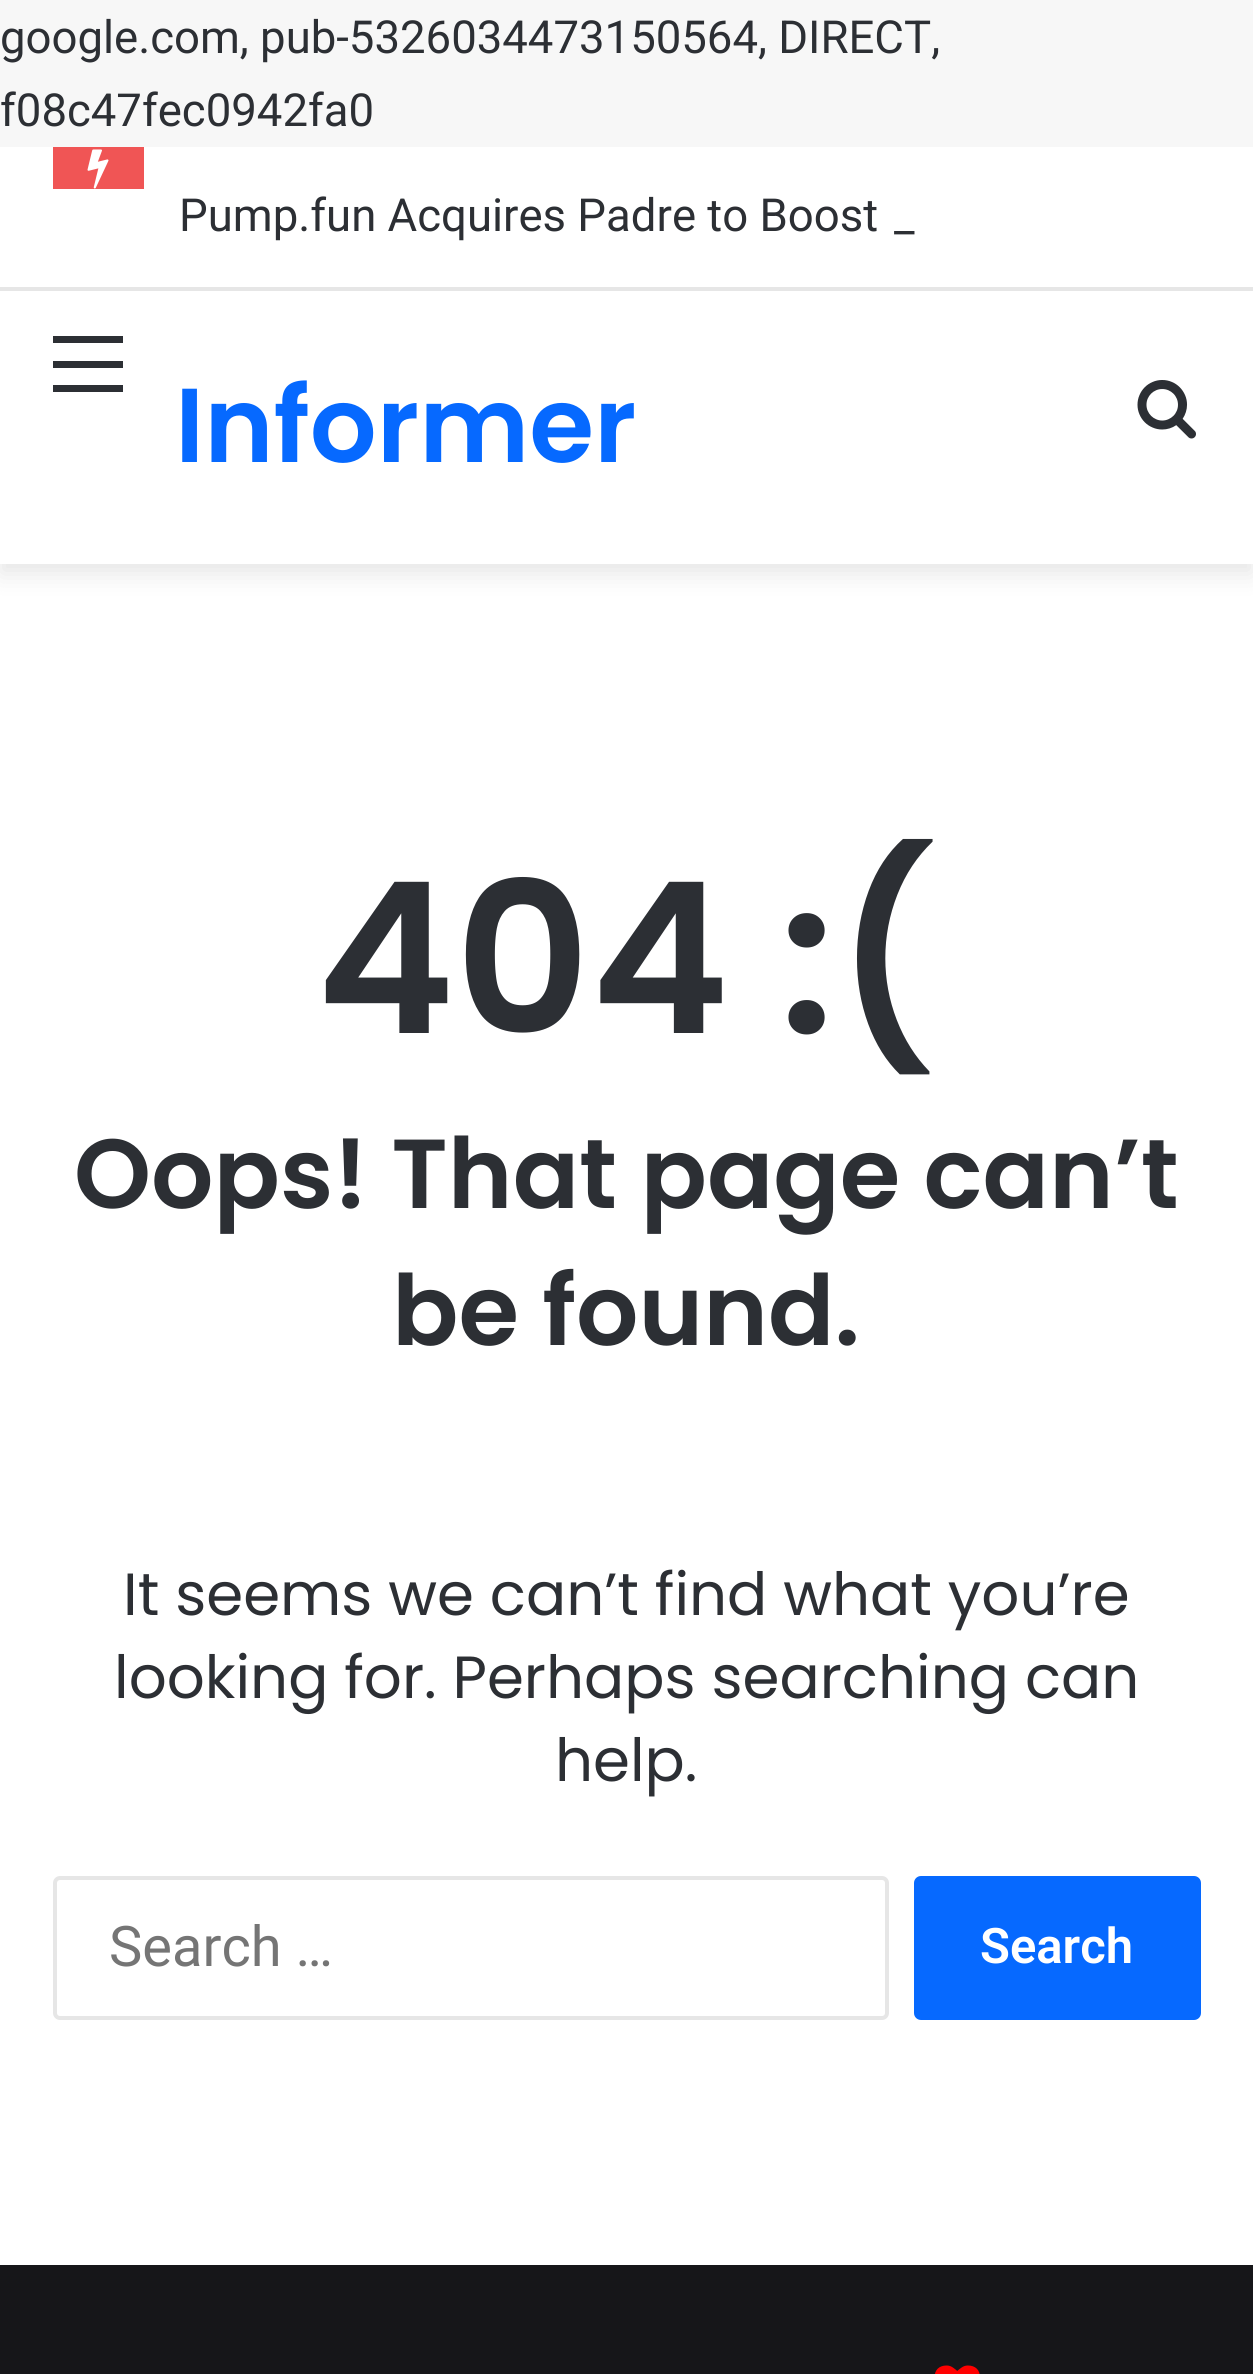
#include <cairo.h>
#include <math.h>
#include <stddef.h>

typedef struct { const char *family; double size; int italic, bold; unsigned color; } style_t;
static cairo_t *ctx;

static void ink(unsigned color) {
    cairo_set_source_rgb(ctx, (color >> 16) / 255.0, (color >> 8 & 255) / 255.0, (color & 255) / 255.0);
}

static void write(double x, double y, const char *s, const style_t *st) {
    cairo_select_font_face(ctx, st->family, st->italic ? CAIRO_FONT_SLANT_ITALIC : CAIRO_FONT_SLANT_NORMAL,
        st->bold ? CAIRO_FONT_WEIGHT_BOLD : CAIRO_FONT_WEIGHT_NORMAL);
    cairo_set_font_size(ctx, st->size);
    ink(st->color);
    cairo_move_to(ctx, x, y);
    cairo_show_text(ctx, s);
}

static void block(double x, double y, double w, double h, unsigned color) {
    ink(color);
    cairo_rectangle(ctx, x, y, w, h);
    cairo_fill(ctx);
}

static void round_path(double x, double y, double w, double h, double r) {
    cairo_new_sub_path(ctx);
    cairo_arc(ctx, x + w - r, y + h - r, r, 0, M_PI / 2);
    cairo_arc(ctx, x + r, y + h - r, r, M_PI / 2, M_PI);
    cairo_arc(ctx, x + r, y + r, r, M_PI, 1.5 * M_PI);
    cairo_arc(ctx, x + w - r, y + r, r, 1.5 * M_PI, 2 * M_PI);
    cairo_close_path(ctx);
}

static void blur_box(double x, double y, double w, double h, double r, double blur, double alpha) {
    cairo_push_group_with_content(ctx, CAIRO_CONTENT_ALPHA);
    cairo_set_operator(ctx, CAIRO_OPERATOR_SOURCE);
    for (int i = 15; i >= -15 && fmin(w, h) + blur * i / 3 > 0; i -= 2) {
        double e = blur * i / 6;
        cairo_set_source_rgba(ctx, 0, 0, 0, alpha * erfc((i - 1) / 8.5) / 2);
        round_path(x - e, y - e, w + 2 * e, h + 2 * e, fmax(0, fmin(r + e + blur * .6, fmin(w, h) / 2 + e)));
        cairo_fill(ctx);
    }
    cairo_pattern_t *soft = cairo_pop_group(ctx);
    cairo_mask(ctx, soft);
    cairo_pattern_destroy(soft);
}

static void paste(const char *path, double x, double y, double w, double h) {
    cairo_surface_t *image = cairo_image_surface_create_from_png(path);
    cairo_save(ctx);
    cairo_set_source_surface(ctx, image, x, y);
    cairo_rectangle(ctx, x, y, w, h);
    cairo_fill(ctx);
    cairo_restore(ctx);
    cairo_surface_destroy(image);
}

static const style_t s1 = {"Roboto", 45.5, 0, 0, 0x2c2f34};
static const style_t s2 = {"Poppins SemiBold", 105, 0, 0, 0x0669ff};
static const style_t s3 = {"Poppins SemiBold", 210, 0, 0, 0x2c2f34};
static const style_t s4 = {"Poppins SemiBold", 98, 0, 0, 0x2c2f34};
static const style_t s5 = {"Poppins", 59.5, 0, 0, 0x2c2f34};
static const style_t s6 = {"Roboto", 56, 0, 0, 0x757575};
static const style_t s7 = {"Roboto SemiBold", 49, 0, 0, 0xffffff};

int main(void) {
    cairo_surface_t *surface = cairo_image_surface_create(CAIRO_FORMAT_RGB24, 1253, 2374);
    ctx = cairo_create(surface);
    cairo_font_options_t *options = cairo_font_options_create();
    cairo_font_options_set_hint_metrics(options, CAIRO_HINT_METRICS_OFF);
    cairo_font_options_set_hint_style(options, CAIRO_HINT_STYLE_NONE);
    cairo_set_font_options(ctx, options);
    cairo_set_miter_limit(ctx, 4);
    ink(0xf7f7f7);
    cairo_paint(ctx);
    write(0, 53, "google.com, pub-5326034473150564, DIRECT,", &s1);
    write(0, 126, "f08c47fec0942fa0", &s1);
    block(0, 564, 1253, 1701, 0xffffff);
    ink(0x000000);
    blur_box(0, 301, 1253, 273, 0, 12, 0.1);
    block(0, 147, 1253, 140, 0xffffff);
    block(0, 287, 1253, 4, 0xe6e6e6);
    block(53, 147, 91, 42, 0xf05555);
    paste("pic1.png", 87, 149, 22, 40);
    write(179, 231, "Pump.fun Acquires Padre to Boost", &s1);
    write(894, 231, "_", &s1);
    block(0, 291, 1253, 273, 0xffffff);
    block(53, 361, 70, 7, 0x2c2f34);
    block(53, 336, 70, 7, 0x2c2f34);
    block(53, 385, 70, 7, 0x2c2f34);
    write(175, 462, "Informer", &s2);
    paste("pic2.png", 1137, 380, 59, 59);
    write(316, 1033, "404 :(", &s3);
    write(74, 1208, "Oops! That page can’t", &s4);
    write(392, 1345, "be found.", &s4);
    write(123, 1615, "It seems we can’t find what you’re", &s5);
    write(114, 1698, "looking for. Perhaps searching can", &s5);
    write(555, 1781, "help.", &s5);
    round_path(55, 1878, 832, 140, 5);
    ink(0xe6e6e6);
    cairo_set_line_width(ctx, 4);
    cairo_stroke(ctx);
    write(109, 1966, "Search …", &s6);
    ink(0x0669ff);
    round_path(914, 1876, 287, 144, 7);
    cairo_fill(ctx);
    write(980, 1963, "Search", &s7);
    block(0, 2265, 1253, 109, 0x161619);
    paste("pic3.png", 935, 2365, 45, 9);
    cairo_surface_write_to_png(surface, "screenshot.png");
    cairo_font_options_destroy(options);
    cairo_destroy(ctx);
    cairo_surface_destroy(surface);
    return 0;
}
